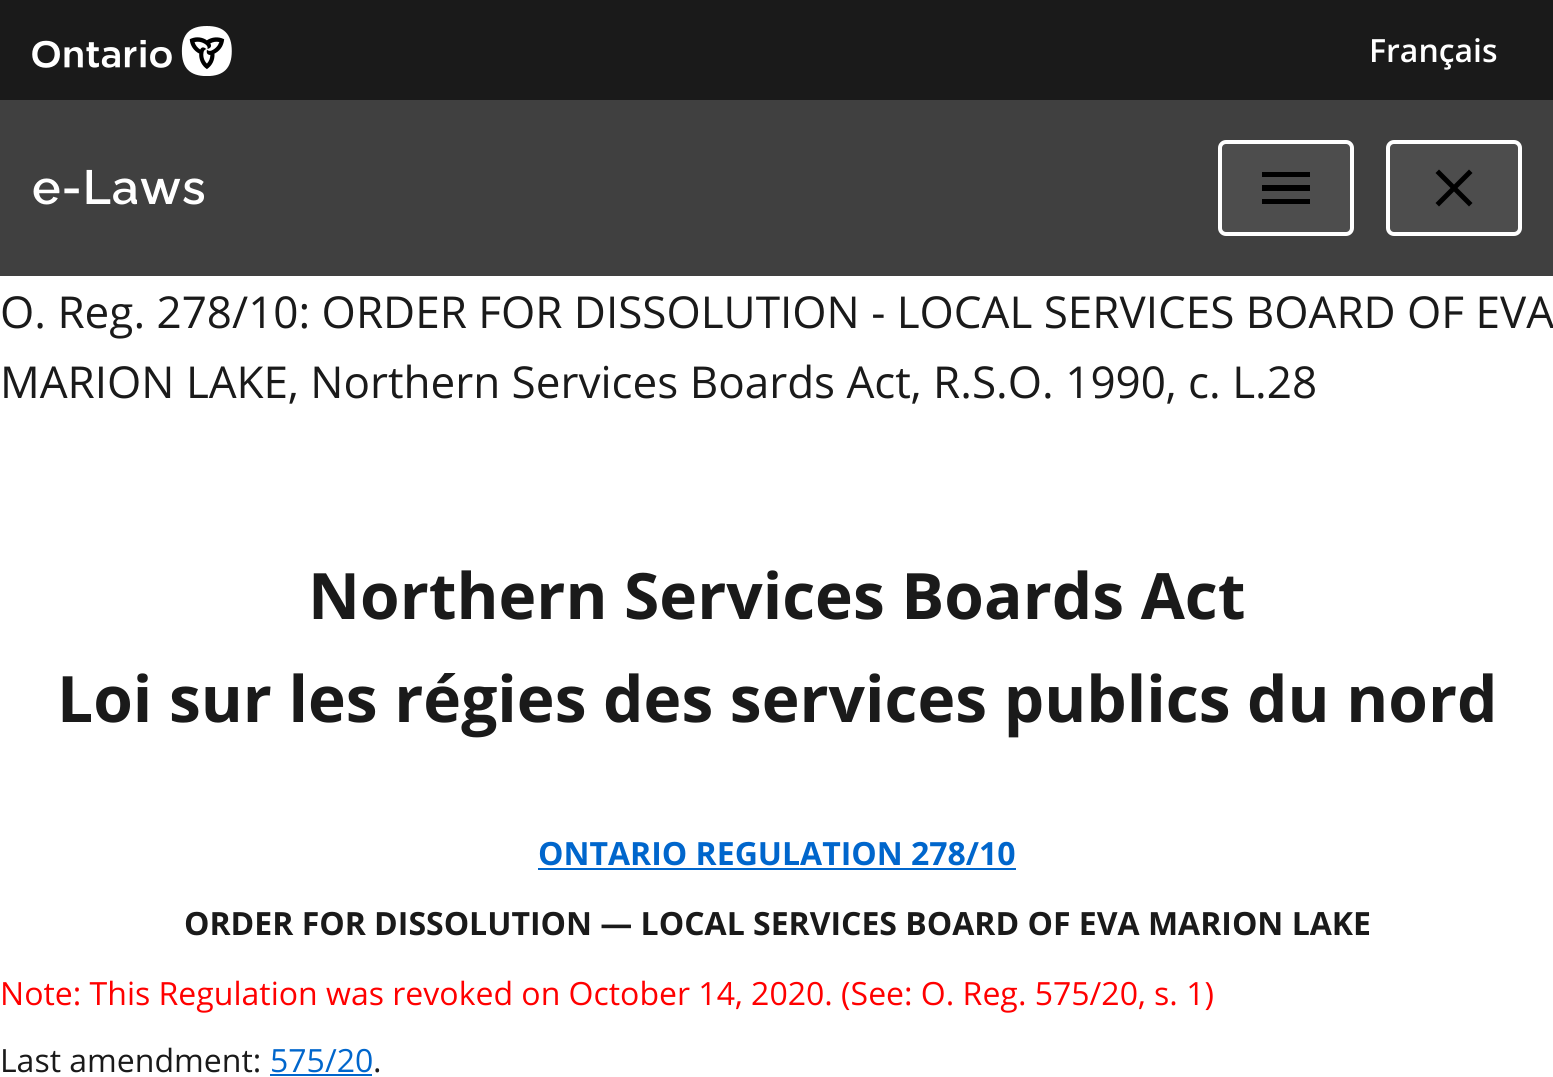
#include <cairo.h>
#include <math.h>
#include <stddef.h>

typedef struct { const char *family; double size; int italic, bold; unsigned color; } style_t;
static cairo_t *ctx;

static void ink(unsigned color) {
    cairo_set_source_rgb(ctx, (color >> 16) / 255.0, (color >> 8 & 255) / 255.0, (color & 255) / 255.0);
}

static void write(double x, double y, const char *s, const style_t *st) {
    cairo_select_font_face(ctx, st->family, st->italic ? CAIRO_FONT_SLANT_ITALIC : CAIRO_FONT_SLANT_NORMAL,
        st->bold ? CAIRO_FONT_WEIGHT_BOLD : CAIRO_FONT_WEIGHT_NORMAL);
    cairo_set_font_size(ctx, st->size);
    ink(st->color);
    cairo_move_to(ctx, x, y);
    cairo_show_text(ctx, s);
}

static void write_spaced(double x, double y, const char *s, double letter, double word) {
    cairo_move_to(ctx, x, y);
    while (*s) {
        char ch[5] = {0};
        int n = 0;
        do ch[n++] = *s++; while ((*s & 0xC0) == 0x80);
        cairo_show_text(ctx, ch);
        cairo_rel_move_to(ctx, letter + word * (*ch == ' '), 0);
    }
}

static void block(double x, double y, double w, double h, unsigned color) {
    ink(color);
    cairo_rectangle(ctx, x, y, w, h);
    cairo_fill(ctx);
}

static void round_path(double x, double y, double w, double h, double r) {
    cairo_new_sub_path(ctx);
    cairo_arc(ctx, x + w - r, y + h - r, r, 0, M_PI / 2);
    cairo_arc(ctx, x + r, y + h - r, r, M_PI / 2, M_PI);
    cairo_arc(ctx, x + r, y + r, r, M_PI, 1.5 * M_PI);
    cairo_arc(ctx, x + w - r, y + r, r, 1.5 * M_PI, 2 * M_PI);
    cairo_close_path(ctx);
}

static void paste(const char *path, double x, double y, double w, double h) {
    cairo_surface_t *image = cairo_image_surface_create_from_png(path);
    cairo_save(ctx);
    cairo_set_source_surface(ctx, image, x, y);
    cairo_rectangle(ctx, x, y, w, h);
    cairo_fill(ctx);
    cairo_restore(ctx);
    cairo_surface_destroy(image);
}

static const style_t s1 = {"Open Sans SemiBold", 32, 0, 0, 0xffffff};
static const style_t s2 = {"Open Sans", 44, 0, 0, 0x1a1a1a};
static const style_t s3 = {"Open Sans", 64, 0, 1, 0x1a1a1a};
static const style_t s4 = {"Open Sans", 32, 0, 1, 0x0066cc};
static const style_t s5 = {"Open Sans", 32, 0, 1, 0x1a1a1a};
static const style_t s6 = {"Open Sans", 32, 0, 0, 0xff0000};
static const style_t s7 = {"Open Sans", 32, 0, 0, 0x1a1a1a};
static const style_t s8 = {"Open Sans", 32, 0, 0, 0x0066cc};

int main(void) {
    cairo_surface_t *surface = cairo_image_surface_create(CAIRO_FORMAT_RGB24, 1553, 1077);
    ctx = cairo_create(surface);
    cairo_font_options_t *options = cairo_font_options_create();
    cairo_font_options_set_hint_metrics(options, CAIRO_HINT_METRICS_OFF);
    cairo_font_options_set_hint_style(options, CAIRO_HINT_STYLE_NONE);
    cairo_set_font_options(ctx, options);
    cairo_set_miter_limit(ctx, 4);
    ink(0xffffff);
    cairo_paint(ctx);
    block(0, 0, 1553, 100, 0x1a1a1a);
    paste("pic1.png", 32, 26, 200, 50);
    write(1369, 62, "Français", &s1);
    block(0, 100, 1553, 176, 0x404040);
    cairo_select_font_face(ctx, "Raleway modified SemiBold", CAIRO_FONT_SLANT_NORMAL, CAIRO_FONT_WEIGHT_NORMAL);
    cairo_set_font_size(ctx, 48);
    ink(0xffffff);
    write_spaced(32, 204, "e-Laws", 1, 0);
    ink(0x4d4d4d);
    round_path(1220, 142, 132, 92, 6);
    cairo_fill_preserve(ctx);
    ink(0xffffff);
    cairo_set_line_width(ctx, 4);
    cairo_stroke(ctx);
    ink(0x000000);
    cairo_new_path(ctx);
    cairo_move_to(ctx, 1262, 204);
    cairo_line_to(ctx, 1310, 204);
    cairo_line_to(ctx, 1310, 199);
    cairo_line_to(ctx, 1262, 199);
    cairo_close_path(ctx);
    cairo_move_to(ctx, 1262, 191);
    cairo_line_to(ctx, 1310, 191);
    cairo_line_to(ctx, 1310, 185);
    cairo_line_to(ctx, 1262, 185);
    cairo_close_path(ctx);
    cairo_move_to(ctx, 1262, 172);
    cairo_line_to(ctx, 1262, 177);
    cairo_line_to(ctx, 1310, 177);
    cairo_line_to(ctx, 1310, 172);
    cairo_close_path(ctx);
    cairo_fill(ctx);
    ink(0x4d4d4d);
    round_path(1388, 142, 132, 92, 6);
    cairo_fill_preserve(ctx);
    ink(0xffffff);
    cairo_stroke(ctx);
    ink(0x000000);
    cairo_new_path(ctx);
    cairo_move_to(ctx, 1472.5, 173);
    cairo_line_to(ctx, 1469, 169.5);
    cairo_line_to(ctx, 1454, 184.5);
    cairo_line_to(ctx, 1439, 169.5);
    cairo_line_to(ctx, 1435.5, 173);
    cairo_line_to(ctx, 1450.5, 188);
    cairo_line_to(ctx, 1435.5, 203);
    cairo_line_to(ctx, 1439, 206.5);
    cairo_line_to(ctx, 1454, 191.5);
    cairo_line_to(ctx, 1469, 206.5);
    cairo_line_to(ctx, 1472.5, 203);
    cairo_line_to(ctx, 1457.5, 188);
    cairo_close_path(ctx);
    cairo_fill(ctx);
    write(0, 328, "O. Reg. 278/10: ORDER FOR DISSOLUTION - LOCAL SERVICES BOARD OF EVA", &s2);
    write(0, 398, "MARION LAKE, Northern Services Boards Act, R.S.O. 1990, c. L.28", &s2);
    write(308, 619, "Northern Services Boards Act", &s3);
    write(57, 722, "Loi sur les régies des services publics du nord", &s3);
    write(538, 865, "ONTARIO REGULATION 278/10", &s4);
    block(538, 868, 478, 2, 0x0066cc);
    write(184, 935, "ORDER FOR DISSOLUTION — LOCAL SERVICES BOARD OF EVA MARION LAKE", &s5);
    write(0, 1005, "Note: This Regulation was revoked on October 14, 2020. (See: O. Reg. 575/20, s. 1)", &s6);
    write(0, 1072, "Last amendment:", &s7);
    write(270, 1072, "575/20", &s8);
    block(270, 1074, 102, 2, 0x0066cc);
    write(373, 1072, ".", &s7);
    cairo_surface_write_to_png(surface, "screenshot.png");
    cairo_font_options_destroy(options);
    cairo_destroy(ctx);
    cairo_surface_destroy(surface);
    return 0;
}
